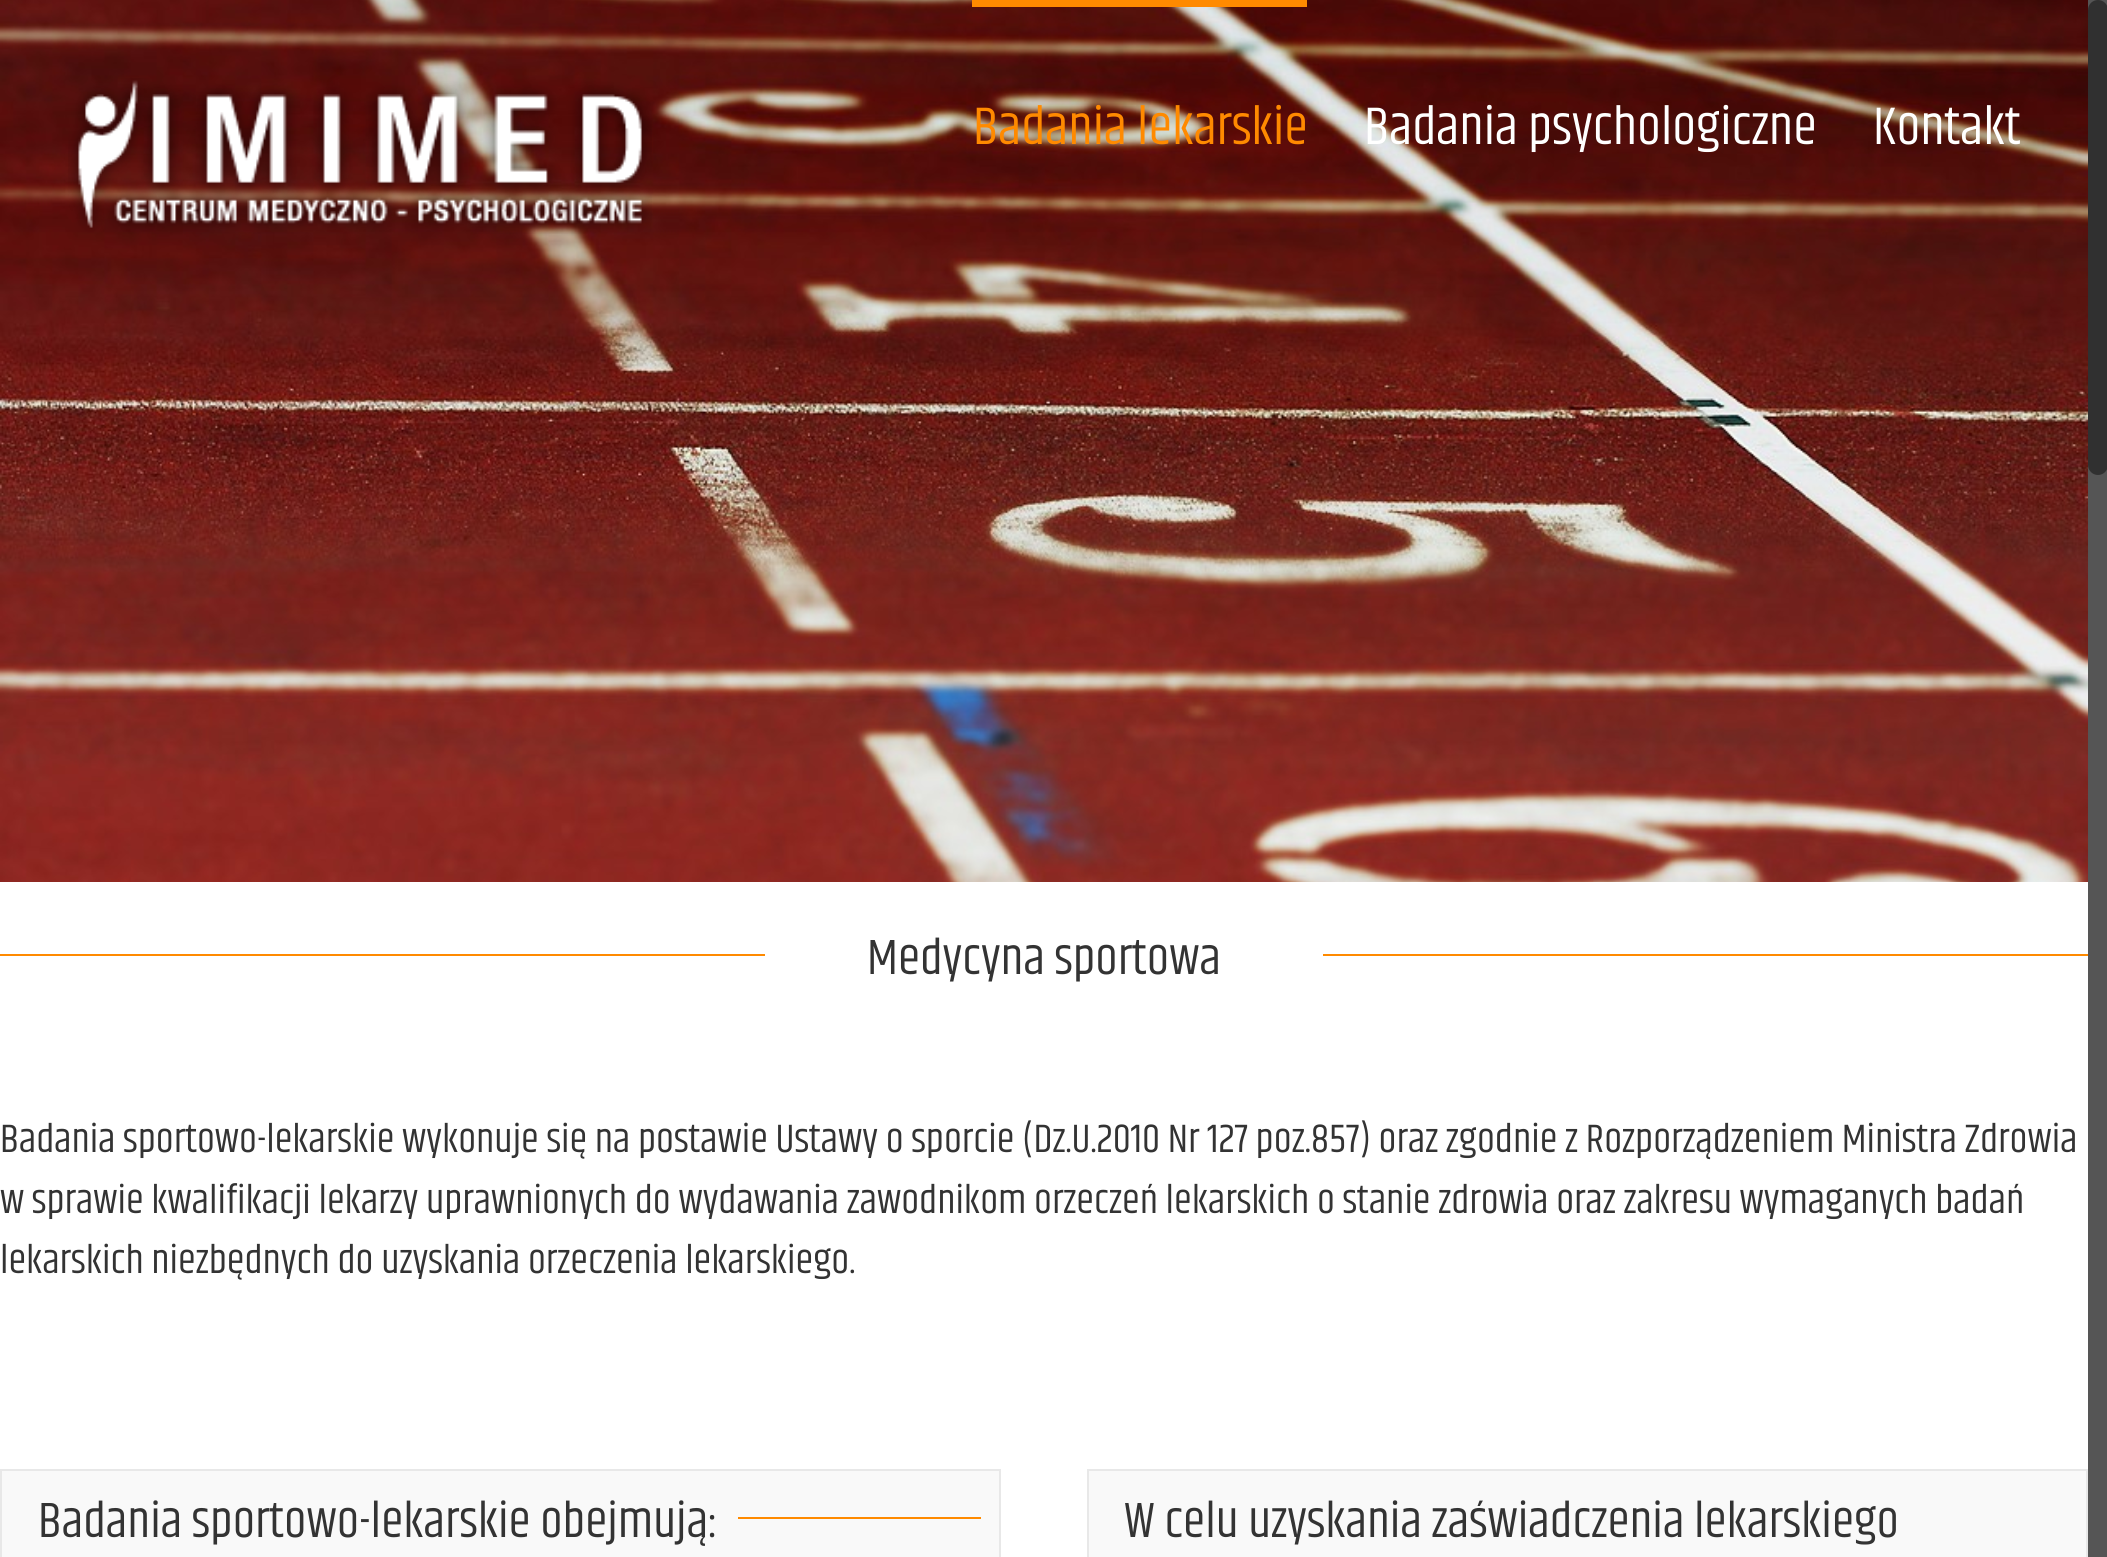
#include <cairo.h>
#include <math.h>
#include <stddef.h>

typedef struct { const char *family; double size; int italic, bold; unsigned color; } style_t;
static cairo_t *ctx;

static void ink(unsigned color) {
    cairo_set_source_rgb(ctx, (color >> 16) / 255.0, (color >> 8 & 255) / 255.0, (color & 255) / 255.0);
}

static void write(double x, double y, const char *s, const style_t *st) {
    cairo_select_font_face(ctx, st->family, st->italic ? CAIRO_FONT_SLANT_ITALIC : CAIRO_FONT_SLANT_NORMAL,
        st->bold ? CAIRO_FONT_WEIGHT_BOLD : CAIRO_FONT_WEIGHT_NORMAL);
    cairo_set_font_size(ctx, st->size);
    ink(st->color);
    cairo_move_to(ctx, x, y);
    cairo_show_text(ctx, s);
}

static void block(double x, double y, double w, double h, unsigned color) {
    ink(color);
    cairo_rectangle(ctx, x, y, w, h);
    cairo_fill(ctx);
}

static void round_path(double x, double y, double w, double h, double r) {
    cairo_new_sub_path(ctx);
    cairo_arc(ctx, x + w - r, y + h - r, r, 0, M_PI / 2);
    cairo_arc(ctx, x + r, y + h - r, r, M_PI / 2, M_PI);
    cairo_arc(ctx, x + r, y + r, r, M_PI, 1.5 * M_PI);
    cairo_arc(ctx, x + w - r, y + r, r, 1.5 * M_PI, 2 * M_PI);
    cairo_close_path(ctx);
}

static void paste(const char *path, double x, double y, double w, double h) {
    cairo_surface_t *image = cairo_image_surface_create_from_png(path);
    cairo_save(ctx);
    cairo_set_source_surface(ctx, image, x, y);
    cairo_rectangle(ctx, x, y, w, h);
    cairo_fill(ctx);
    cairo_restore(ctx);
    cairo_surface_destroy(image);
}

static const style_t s1 = {"Khand", 54, 0, 0, 0xff8a00};
static const style_t s2 = {"Khand", 54, 0, 0, 0xffffff};
static const style_t s3 = {"Khand", 50.6, 0, 0, 0x333333};
static const style_t s4 = {"Khand", 40.5, 0, 0, 0x333333};

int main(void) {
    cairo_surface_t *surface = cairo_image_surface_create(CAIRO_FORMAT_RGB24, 2107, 1557);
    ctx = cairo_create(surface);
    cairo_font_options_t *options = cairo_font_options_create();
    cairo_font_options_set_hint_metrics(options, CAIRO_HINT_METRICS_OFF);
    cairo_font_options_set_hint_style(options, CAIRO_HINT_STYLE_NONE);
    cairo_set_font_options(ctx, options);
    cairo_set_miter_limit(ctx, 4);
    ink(0xffffff);
    cairo_paint(ctx);
    paste("pic2.png", 0, 0, 2088, 882);
    paste("pic1.png", 68, 78, 584, 156);
    block(972, 0, 335, 7, 0xff8a00);
    write(973, 144, "Badania lekarskie", &s1);
    write(1364, 144, "Badania psychologiczne", &s2);
    write(1873, 144, "Kontakt", &s2);
    block(0, 954, 765, 2, 0xff8a00);
    write(867, 974, "Medycyna sportowa", &s3);
    block(1323, 954, 765, 2, 0xff8a00);
    write(0, 1152, "Badania sportowo-lekarskie wykonuje się na postawie Ustawy o sporcie (Dz.U.2010 Nr 127 poz.857) oraz zgodnie z Rozporządzeniem Ministra Zdrowia", &s4);
    write(0, 1213, "w sprawie kwalifikacji lekarzy uprawnionych do wydawania zawodnikom orzeczeń lekarskich o stanie zdrowia oraz zakresu wymaganych badań", &s4);
    write(0, 1273, "lekarskich niezbędnych do uzyskania orzeczenia lekarskiego.", &s4);
    ink(0xf9f9f9);
    cairo_rectangle(ctx, 1, 1470, 999, 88);
    cairo_fill_preserve(ctx);
    ink(0xe8e8e8);
    cairo_stroke(ctx);
    write(38, 1537, "Badania sportowo-lekarskie obejmują:", &s3);
    block(738, 1517, 243, 2, 0xff8a00);
    ink(0xf9f9f9);
    cairo_rectangle(ctx, 1088, 1470, 999, 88);
    cairo_fill_preserve(ctx);
    ink(0xe8e8e8);
    cairo_stroke(ctx);
    write(1124, 1537, "W celu uzyskania zaświadczenia lekarskiego", &s3);
    block(2088, 0, 19, 1557, 0x555555);
    ink(0x303030);
    round_path(2088, 0, 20, 475, 10);
    cairo_fill(ctx);
    cairo_surface_write_to_png(surface, "screenshot.png");
    cairo_font_options_destroy(options);
    cairo_destroy(ctx);
    cairo_surface_destroy(surface);
    return 0;
}
